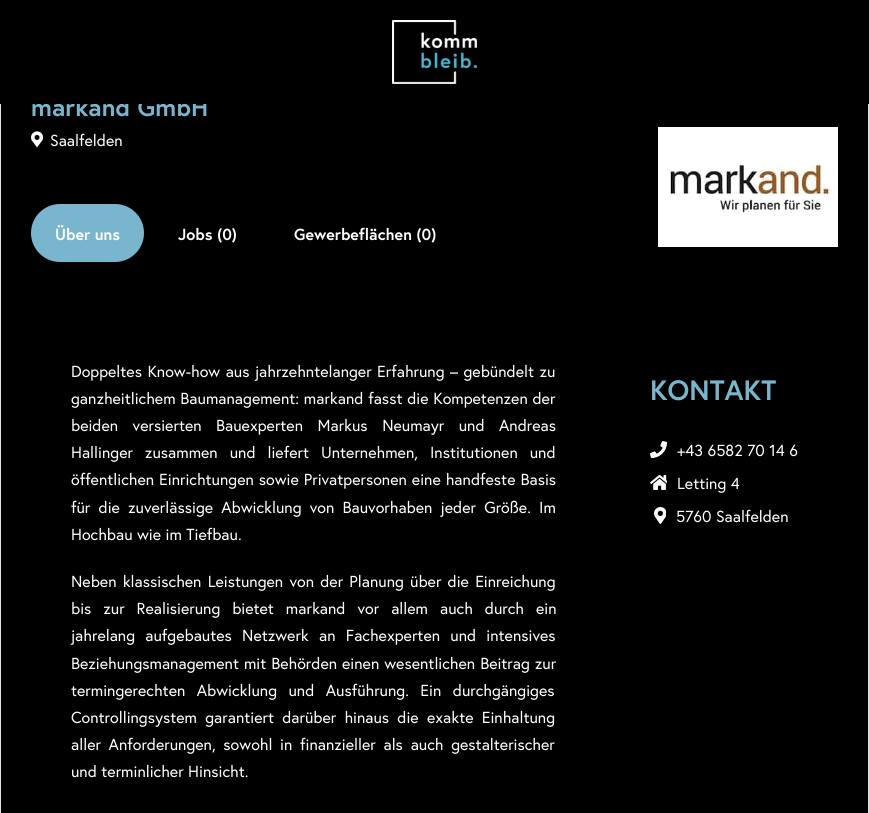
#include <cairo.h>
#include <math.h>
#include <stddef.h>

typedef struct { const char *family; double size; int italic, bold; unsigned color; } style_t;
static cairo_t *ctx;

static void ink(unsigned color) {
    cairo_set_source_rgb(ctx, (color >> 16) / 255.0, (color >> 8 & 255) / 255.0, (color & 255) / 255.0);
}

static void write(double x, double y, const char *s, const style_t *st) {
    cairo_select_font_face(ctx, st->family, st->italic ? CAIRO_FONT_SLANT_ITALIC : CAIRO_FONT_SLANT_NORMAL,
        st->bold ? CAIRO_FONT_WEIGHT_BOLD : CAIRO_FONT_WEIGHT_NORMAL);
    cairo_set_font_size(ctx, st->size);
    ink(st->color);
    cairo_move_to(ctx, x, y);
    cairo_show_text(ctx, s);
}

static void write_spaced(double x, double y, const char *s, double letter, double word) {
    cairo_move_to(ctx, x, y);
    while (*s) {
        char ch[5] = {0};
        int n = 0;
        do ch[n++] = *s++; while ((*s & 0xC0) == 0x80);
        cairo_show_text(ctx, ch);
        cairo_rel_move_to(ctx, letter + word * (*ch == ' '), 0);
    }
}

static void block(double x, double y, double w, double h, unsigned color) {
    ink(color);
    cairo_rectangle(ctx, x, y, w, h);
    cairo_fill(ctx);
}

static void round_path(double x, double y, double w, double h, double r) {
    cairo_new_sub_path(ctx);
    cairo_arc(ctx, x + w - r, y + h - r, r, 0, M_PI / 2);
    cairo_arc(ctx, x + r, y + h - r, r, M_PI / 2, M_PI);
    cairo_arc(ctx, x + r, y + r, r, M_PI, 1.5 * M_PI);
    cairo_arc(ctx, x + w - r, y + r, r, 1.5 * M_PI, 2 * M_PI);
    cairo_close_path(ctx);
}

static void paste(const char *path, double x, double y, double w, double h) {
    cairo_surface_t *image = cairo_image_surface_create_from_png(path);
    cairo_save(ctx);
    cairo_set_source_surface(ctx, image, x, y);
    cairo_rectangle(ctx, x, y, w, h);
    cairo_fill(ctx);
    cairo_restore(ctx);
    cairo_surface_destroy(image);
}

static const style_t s1 = {"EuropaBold", 25, 0, 1, 0x79b6ce};
static const style_t s2 = {"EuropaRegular", 16, 0, 0, 0xffffff};
static const style_t s3 = {"EuropaBold", 16, 0, 1, 0xffffff};
static const style_t s4 = {"EuropaBold", 28, 0, 1, 0x79b6ce};

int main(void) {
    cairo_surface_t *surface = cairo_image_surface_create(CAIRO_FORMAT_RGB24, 869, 813);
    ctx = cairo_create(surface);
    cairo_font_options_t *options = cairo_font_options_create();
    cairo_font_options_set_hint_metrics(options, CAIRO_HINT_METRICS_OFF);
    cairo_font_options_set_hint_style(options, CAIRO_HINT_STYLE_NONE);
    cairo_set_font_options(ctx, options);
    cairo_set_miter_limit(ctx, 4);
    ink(0x000000);
    cairo_paint(ctx);
    cairo_rectangle(ctx, 0.5, 50.5, 868, 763);
    ink(0xe3e3e3);
    cairo_set_line_width(ctx, 1);
    cairo_stroke(ctx);
    write(31, 116, "markand GmbH", &s1);
    block(0, 50, 869, 54, 0x000000);
    paste("pic1.png", 392, 20, 85, 64);
    paste("pic2.png", 31, 131, 13, 17);
    write(50, 146, "Saalfelden", &s2);
    paste("pic3.png", 658, 127, 180, 120);
    ink(0x79b6ce);
    round_path(31, 204, 113, 58, 29);
    cairo_fill(ctx);
    write(55, 240, "Über uns", &s3);
    write(178, 240, "Jobs (0)", &s3);
    write(294, 240, "Gewerbeflächen (0)", &s3);
    cairo_select_font_face(ctx, "EuropaRegular", CAIRO_FONT_SLANT_NORMAL, CAIRO_FONT_WEIGHT_NORMAL);
    write_spaced(71, 377, "Doppeltes Know-how aus jahrzehntelanger Erfahrung – gebündelt zu", 0, 1);
    write_spaced(71, 404, "ganzheitlichem Baumanagement: markand fasst die Kompetenzen der", 0, 0.25);
    write_spaced(71, 431, "beiden versierten Bauexperten Markus Neumayr und Andreas", 0, 10);
    write_spaced(71, 458, "Hallinger zusammen und liefert Unternehmen, Institutionen und", 0, 7.5);
    write_spaced(71, 485, "öffentlichen Einrichtungen sowie Privatpersonen eine handfeste Basis", 0, 0.5);
    write_spaced(71, 513, "für die zuverlässige Abwicklung von Bauvorhaben jeder Größe. Im", 0, 3.75);
    write(71, 540, "Hochbau wie im Tiefbau.", &s2);
    write_spaced(71, 587, "Neben klassischen Leistungen von der Planung über die Einreichung", 0, 1.75);
    write_spaced(71, 614, "bis zur Realisierung bietet markand vor allem auch durch ein", 0, 7.5);
    write_spaced(71, 641, "jahrelang aufgebautes Netzwerk an Fachexperten und intensives", 0, 5.75);
    write_spaced(71, 669, "Beziehungsmanagement mit Behörden einen wesentlichen Beitrag zur", 0, 0.5);
    write_spaced(71, 696, "termingerechten Abwicklung und Ausführung. Ein durchgängiges", 0, 7);
    write_spaced(71, 723, "Controllingsystem garantiert darüber hinaus die exakte Einhaltung", 0, 3.75);
    write_spaced(71, 750, "aller Anforderungen, sowohl in finanzieller als auch gestalterischer", 0, 3.25);
    write(71, 777, "und terminlicher Hinsicht.", &s2);
    write(650, 400, "KONTAKT", &s4);
    paste("pic4.png", 650, 441, 17, 17);
    write(677, 456, "+43 6582 70 14 6", &s2);
    paste("pic5.png", 650, 475, 17, 15);
    write(677, 489, "Letting 4", &s2);
    paste("pic6.png", 654, 507, 12, 17);
    write(676, 522, "5760 Saalfelden", &s2);
    cairo_surface_write_to_png(surface, "screenshot.png");
    cairo_font_options_destroy(options);
    cairo_destroy(ctx);
    cairo_surface_destroy(surface);
    return 0;
}
